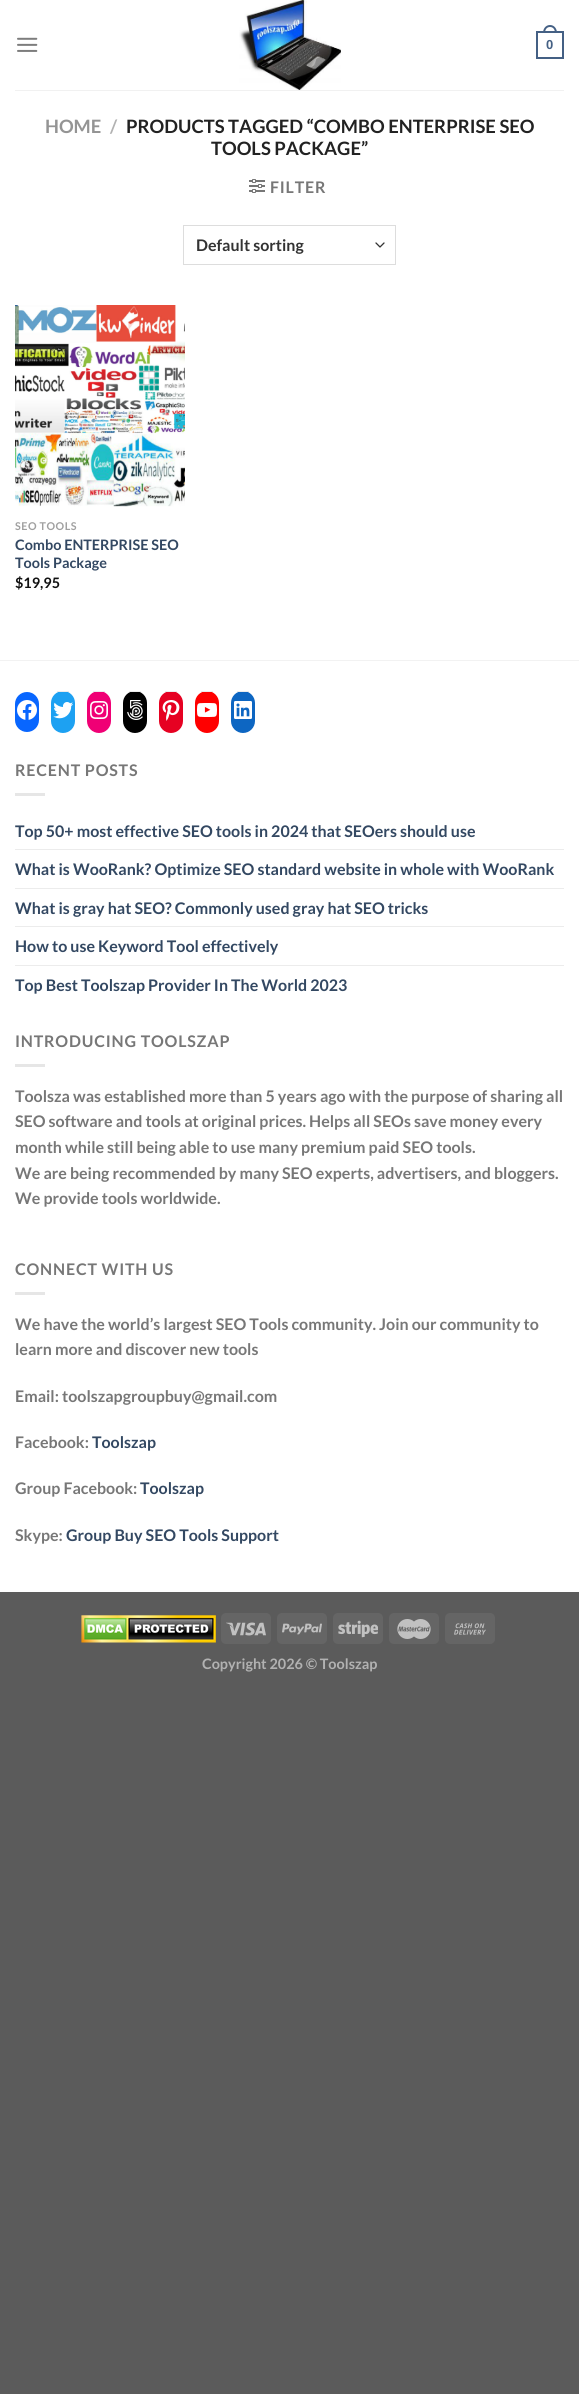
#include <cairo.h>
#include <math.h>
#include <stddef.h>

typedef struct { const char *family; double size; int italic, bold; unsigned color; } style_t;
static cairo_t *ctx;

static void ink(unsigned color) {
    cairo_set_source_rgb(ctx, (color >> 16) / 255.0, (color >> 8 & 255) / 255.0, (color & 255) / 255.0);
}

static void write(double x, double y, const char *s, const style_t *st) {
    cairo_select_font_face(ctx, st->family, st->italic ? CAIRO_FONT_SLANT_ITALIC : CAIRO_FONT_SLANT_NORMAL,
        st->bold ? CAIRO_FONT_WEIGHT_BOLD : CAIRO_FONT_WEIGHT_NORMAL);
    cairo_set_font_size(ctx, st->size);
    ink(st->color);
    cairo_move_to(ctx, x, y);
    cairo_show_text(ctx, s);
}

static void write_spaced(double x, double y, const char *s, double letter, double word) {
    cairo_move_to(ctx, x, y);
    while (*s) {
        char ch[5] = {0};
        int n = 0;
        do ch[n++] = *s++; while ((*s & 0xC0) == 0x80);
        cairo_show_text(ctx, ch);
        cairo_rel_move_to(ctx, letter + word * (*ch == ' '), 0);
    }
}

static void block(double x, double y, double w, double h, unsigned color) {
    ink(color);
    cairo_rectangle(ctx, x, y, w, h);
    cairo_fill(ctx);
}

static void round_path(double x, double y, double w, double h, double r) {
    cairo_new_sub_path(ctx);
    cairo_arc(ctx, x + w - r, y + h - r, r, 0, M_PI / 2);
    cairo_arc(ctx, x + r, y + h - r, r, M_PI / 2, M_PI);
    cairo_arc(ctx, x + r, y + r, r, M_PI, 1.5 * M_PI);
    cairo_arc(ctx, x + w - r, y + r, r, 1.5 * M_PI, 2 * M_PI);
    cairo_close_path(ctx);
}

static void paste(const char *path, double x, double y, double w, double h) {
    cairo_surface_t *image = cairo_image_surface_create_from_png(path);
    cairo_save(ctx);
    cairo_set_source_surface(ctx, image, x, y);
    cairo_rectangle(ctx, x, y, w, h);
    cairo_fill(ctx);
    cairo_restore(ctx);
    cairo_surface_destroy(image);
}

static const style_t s1 = {"Liberation Sans", 13, 0, 1, 0x446084};
static const style_t s2 = {"Lato", 18.4, 0, 1, 0x949494};
static const style_t s3 = {"Lato", 18.4, 0, 1, 0xb2b2b2};
static const style_t s4 = {"Lato", 18.4, 0, 1, 0x222222};
static const style_t s5 = {"Lato", 16, 0, 1, 0x333333};
static const style_t s6 = {"Lato", 14.4, 0, 1, 0x334862};
static const style_t s7 = {"Lato", 14.4, 0, 1, 0x111111};
static const style_t s8 = {"Lato", 16, 0, 1, 0x334862};
static const style_t s9 = {"Lato", 16, 0, 1, 0x777777};
static const style_t s10 = {"Lato", 14.4, 0, 1, 0xb2b2b2};

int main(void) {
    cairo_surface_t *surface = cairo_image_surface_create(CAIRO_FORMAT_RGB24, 579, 2394);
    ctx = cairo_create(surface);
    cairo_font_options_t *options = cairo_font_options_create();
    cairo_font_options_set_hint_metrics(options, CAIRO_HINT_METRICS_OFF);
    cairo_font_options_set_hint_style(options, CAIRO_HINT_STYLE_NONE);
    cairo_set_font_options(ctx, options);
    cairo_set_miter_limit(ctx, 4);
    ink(0x5b5b5b);
    cairo_paint(ctx);
    block(0, 0, 579, 1592, 0xffffff);
    paste("pic1.png", 17, 37, 21, 15);
    paste("pic2.png", 239, 0, 102, 90);
    cairo_rectangle(ctx, 537, 32, 26, 26);
    ink(0x446084);
    cairo_stroke(ctx);
    cairo_set_fill_rule(ctx, CAIRO_FILL_RULE_EVEN_ODD);
    cairo_new_path(ctx);
    cairo_move_to(ctx, 550, 25);
    cairo_curve_to(ctx, 554.5, 25, 557, 29, 557, 33);
    cairo_line_to(ctx, 543, 33);
    cairo_curve_to(ctx, 543, 29, 545.5, 25, 550, 25);
    cairo_close_path(ctx);
    cairo_move_to(ctx, 550, 27);
    cairo_curve_to(ctx, 553.5, 27, 555, 30, 555, 33);
    cairo_line_to(ctx, 545, 33);
    cairo_curve_to(ctx, 545, 30, 546.5, 27, 550, 27);
    cairo_close_path(ctx);
    cairo_fill(ctx);
    write(546, 49, "0", &s1);
    block(15, 90, 549, 1, 0xf1f1f1);
    write(45, 133, "HOME", &s2);
    write(110, 133, "/", &s3);
    write(126, 133, "PRODUCTS TAGGED “COMBO ENTERPRISE SEO", &s4);
    write(211, 155, "TOOLS PACKAGE”", &s4);
    paste("pic3.png", 249, 179, 16, 14);
    cairo_set_font_size(ctx, 16);
    ink(0x777777);
    write_spaced(270, 193, "FILTER", 0.8, 0);
    cairo_new_path(ctx);
    cairo_move_to(ctx, 376, 243);
    cairo_line_to(ctx, 380, 247);
    cairo_line_to(ctx, 384, 243);
    ink(0x333333);
    cairo_set_line_width(ctx, 1.3);
    cairo_set_line_cap(ctx, CAIRO_LINE_CAP_ROUND);
    cairo_set_line_join(ctx, CAIRO_LINE_JOIN_ROUND);
    cairo_stroke(ctx);
    cairo_rectangle(ctx, 183.5, 225.5, 212, 39);
    ink(0xdddddd);
    cairo_set_line_width(ctx, 1);
    cairo_set_line_cap(ctx, CAIRO_LINE_CAP_BUTT);
    cairo_set_line_join(ctx, CAIRO_LINE_JOIN_MITER);
    cairo_stroke(ctx);
    write(196, 251, "Default sorting", &s5);
    paste("pic4.png", 15, 305, 170, 202);
    cairo_set_font_size(ctx, 10.75);
    ink(0xa0a0a0);
    write_spaced(15, 530, "SEO TOOLS", 0.5, 0);
    write(15, 550, "Combo ENTERPRISE SEO", &s6);
    write(15, 568, "Tools Package", &s6);
    write(15, 588, "$19,95", &s7);
    block(0, 660, 579, 1, 0xf2f2f2);
    ink(0x0866ff);
    round_path(15, 692, 24, 40, 12);
    cairo_fill(ctx);
    paste("pic5.png", 17, 700, 20, 20);
    ink(0x1da1f2);
    round_path(51, 691, 24, 42, 12);
    cairo_fill(ctx);
    block(57, 691, 12, 1, 0xececec);
    paste("pic6.png", 53, 702, 20, 17);
    ink(0xf00075);
    round_path(87, 691, 24, 42, 12);
    cairo_fill(ctx);
    block(93, 691, 12, 1, 0xececec);
    paste("pic7.png", 90, 701, 18, 18);
    ink(0x000000);
    round_path(123, 691, 24, 42, 12);
    cairo_fill(ctx);
    block(129, 691, 12, 1, 0xececec);
    paste("pic8.png", 127, 700, 16, 20);
    ink(0xe60122);
    round_path(159, 691, 24, 42, 12);
    cairo_fill(ctx);
    block(165, 691, 12, 1, 0xececec);
    paste("pic9.png", 162, 700, 18, 21);
    ink(0xff0000);
    round_path(195, 691, 24, 42, 12);
    cairo_fill(ctx);
    block(201, 691, 12, 1, 0xececec);
    paste("pic10.png", 197, 703, 20, 14);
    ink(0x0d66c2);
    round_path(231, 691, 24, 42, 12);
    cairo_fill(ctx);
    block(237, 691, 12, 1, 0xececec);
    paste("pic11.png", 234, 701, 18, 18);
    cairo_set_font_size(ctx, 16);
    ink(0x777777);
    write_spaced(15, 776, "RECENT POSTS", 0.8, 0);
    block(15, 793, 30, 3, 0xe6e6e6);
    write(15, 837, "Top 50+ most effective SEO tools in 2024 that SEOers should use", &s8);
    block(15, 849, 549, 1, 0xececec);
    write(15, 875, "What is WooRank? Optimize SEO standard website in whole with WooRank", &s8);
    block(15, 888, 549, 1, 0xececec);
    write(15, 914, "What is gray hat SEO? Commonly used gray hat SEO tricks", &s8);
    block(15, 926, 549, 1, 0xececec);
    write(15, 952, "How to use Keyword Tool effectively", &s8);
    block(15, 965, 549, 1, 0xececec);
    write(15, 991, "Top Best Toolszap Provider In The World 2023", &s8);
    ink(0x777777);
    write_spaced(15, 1047, "INTRODUCING TOOLSZAP", 0.8, 0);
    block(15, 1064, 30, 3, 0xe6e6e6);
    write(15, 1102, "Toolsza was established more than 5 years ago with the purpose of sharing all", &s9);
    write(15, 1127, "SEO software and tools at original prices. Helps all SEOs save money every", &s9);
    write(15, 1153, "month while still being able to use many premium paid SEO tools.", &s9);
    write(15, 1179, "We are being recommended by many SEO experts, advertisers, and bloggers.", &s9);
    write(15, 1204, "We provide tools worldwide.", &s9);
    write_spaced(15, 1275, "CONNECT WITH US", 0.8, 0);
    block(15, 1292, 30, 3, 0xe6e6e6);
    write(15, 1330, "We have the world’s largest SEO Tools community. Join our community to", &s9);
    write(15, 1355, "learn more and discover new tools", &s9);
    write(15, 1402, "Email: toolszapgroupbuy@gmail.com", &s9);
    write(15, 1448, "Facebook:", &s9);
    write(92, 1448, "Toolszap", &s8);
    write(15, 1494, "Group Facebook:", &s9);
    write(140, 1494, "Toolszap", &s8);
    write(15, 1541, "Skype:", &s9);
    write(66, 1541, "Group Buy SEO Tools Support", &s8);
    paste("pic12.png", 81, 1615, 135, 28);
    ink(0x656565);
    round_path(221, 1613, 50, 31, 5);
    cairo_fill(ctx);
    paste("pic13.png", 226, 1622, 40, 14);
    round_path(277, 1613, 50, 31, 5);
    cairo_fill(ctx);
    paste("pic14.png", 282, 1623, 40, 12);
    round_path(333, 1613, 50, 31, 5);
    cairo_fill(ctx);
    paste("pic15.png", 338, 1620, 40, 18);
    round_path(389, 1613, 50, 31, 5);
    cairo_fill(ctx);
    paste("pic16.png", 397, 1619, 34, 20);
    round_path(445, 1613, 50, 31, 5);
    cairo_fill(ctx);
    paste("pic17.png", 454, 1623, 32, 12);
    write(202, 1669, "Copyright 2026 © Toolszap", &s10);
    cairo_surface_write_to_png(surface, "screenshot.png");
    cairo_font_options_destroy(options);
    cairo_destroy(ctx);
    cairo_surface_destroy(surface);
    return 0;
}
